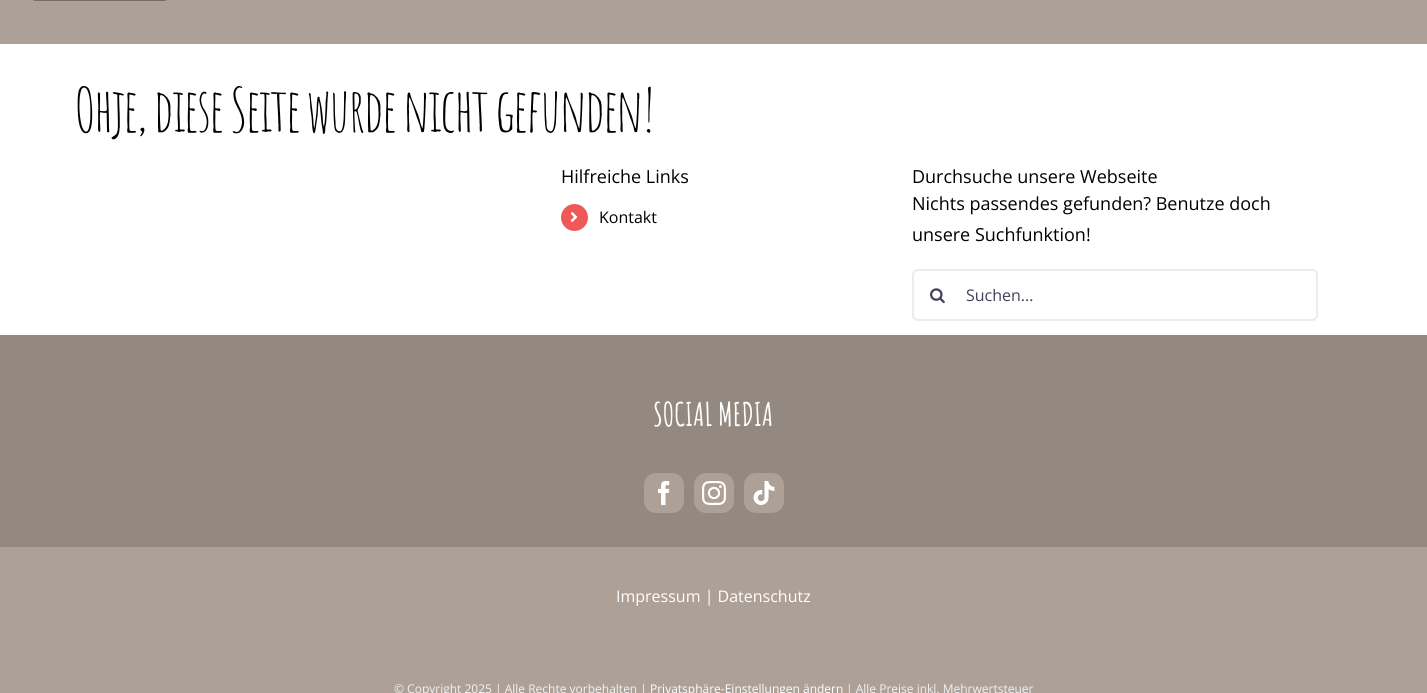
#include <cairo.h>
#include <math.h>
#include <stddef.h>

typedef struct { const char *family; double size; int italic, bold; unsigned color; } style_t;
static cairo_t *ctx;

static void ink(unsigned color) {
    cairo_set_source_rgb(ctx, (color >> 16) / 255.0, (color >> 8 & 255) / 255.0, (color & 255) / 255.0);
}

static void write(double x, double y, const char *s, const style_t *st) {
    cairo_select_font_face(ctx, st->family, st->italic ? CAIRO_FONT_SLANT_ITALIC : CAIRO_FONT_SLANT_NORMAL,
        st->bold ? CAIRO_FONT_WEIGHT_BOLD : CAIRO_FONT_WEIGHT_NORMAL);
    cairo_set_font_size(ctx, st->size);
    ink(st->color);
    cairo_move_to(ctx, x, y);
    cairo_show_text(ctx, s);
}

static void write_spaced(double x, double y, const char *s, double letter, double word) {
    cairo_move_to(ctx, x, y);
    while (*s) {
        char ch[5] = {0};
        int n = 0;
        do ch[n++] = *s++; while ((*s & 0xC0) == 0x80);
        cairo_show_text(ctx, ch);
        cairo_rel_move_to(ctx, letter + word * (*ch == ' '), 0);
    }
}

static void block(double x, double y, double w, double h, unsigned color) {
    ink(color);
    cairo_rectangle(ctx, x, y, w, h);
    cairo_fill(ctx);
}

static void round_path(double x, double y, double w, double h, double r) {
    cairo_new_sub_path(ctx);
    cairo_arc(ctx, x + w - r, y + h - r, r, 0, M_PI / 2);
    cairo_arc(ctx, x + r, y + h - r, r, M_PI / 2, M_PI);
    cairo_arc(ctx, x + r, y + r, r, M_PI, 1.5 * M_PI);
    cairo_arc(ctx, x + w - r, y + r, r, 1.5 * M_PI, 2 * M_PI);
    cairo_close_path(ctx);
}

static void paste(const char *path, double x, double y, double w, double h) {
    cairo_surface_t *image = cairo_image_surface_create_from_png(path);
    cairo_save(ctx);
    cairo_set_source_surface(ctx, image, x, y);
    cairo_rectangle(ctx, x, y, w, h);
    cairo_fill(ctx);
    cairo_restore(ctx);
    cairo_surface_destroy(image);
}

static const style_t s1 = {"Open Sans", 18, 0, 0, 0x000000};
static const style_t s2 = {"Open Sans", 16, 0, 0, 0x000000};
static const style_t s3 = {"Open Sans", 16, 0, 0, 0x44405a};
static const style_t s4 = {"Amatic SC", 32, 0, 1, 0xffffff};
static const style_t s5 = {"Open Sans", 16, 0, 0, 0xffffff};
static const style_t s6 = {"Open Sans", 12, 0, 0, 0xf3f3f3};
static const style_t s7 = {"Open Sans", 12, 0, 0, 0xffffff};

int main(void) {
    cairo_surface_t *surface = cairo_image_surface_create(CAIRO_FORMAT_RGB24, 1427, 693);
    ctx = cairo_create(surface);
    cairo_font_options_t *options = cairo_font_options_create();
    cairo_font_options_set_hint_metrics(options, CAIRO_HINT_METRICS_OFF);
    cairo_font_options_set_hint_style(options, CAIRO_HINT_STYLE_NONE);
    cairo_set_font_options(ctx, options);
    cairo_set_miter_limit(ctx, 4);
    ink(0xffffff);
    cairo_paint(ctx);
    block(0, 0, 1427, 44, 0xada096);
    paste("pic1.png", 31, 0, 136, 2);
    cairo_select_font_face(ctx, "Amatic SC", CAIRO_FONT_SLANT_NORMAL, CAIRO_FONT_WEIGHT_NORMAL);
    cairo_set_font_size(ctx, 60);
    ink(0x000000);
    write_spaced(74, 132, "Ohje, diese Seite wurde nicht gefunden!", -2.4, 0);
    write(561, 183, "Hilfreiche Links", &s1);
    ink(0xf05858);
    cairo_new_path(ctx);
    cairo_arc(ctx, 574.5, 217.5, 13.5, 0, 2 * M_PI);
    cairo_fill(ctx);
    paste("pic2.png", 570, 212, 8, 10);
    write(599, 223, "Kontakt", &s2);
    write(912, 183, "Durchsuche unsere Webseite", &s1);
    write(912, 210, "Nichts passendes gefunden? Benutze doch", &s1);
    write(912, 241, "unsere Suchfunktion!", &s1);
    round_path(913, 270, 404, 50, 5);
    ink(0xececef);
    cairo_stroke(ctx);
    paste("pic3.png", 930, 288, 15, 16);
    write(966, 301, "Suchen...", &s3);
    block(0, 335, 1427, 212, 0x938980);
    write(653, 426, "SOCIAL MEDIA", &s4);
    ink(0xada096);
    round_path(644, 473, 40, 40, 12);
    cairo_fill(ctx);
    paste("pic4.png", 658, 481, 12, 24);
    round_path(694, 473, 40, 40, 12);
    cairo_fill(ctx);
    paste("pic5.png", 702, 481, 24, 24);
    round_path(744, 473, 40, 40, 12);
    cairo_fill(ctx);
    paste("pic6.png", 753, 481, 22, 24);
    block(0, 547, 1427, 146, 0xada096);
    write(616, 602, "Impressum | Datenschutz", &s5);
    write(394, 693, "© Copyright 2025 | Alle Rechte vorbehalten |", &s6);
    write(650, 693, "Privatsphäre-Einstellungen ändern", &s7);
    write(846, 693, "| Alle Preise inkl. Mehrwertsteuer", &s6);
    cairo_surface_write_to_png(surface, "screenshot.png");
    cairo_font_options_destroy(options);
    cairo_destroy(ctx);
    cairo_surface_destroy(surface);
    return 0;
}
